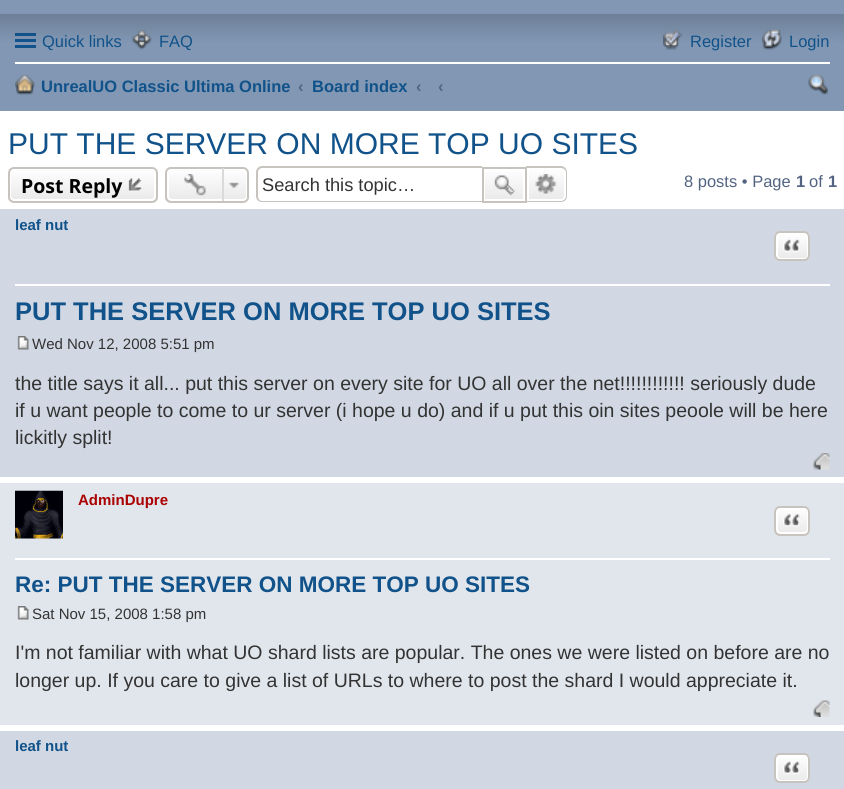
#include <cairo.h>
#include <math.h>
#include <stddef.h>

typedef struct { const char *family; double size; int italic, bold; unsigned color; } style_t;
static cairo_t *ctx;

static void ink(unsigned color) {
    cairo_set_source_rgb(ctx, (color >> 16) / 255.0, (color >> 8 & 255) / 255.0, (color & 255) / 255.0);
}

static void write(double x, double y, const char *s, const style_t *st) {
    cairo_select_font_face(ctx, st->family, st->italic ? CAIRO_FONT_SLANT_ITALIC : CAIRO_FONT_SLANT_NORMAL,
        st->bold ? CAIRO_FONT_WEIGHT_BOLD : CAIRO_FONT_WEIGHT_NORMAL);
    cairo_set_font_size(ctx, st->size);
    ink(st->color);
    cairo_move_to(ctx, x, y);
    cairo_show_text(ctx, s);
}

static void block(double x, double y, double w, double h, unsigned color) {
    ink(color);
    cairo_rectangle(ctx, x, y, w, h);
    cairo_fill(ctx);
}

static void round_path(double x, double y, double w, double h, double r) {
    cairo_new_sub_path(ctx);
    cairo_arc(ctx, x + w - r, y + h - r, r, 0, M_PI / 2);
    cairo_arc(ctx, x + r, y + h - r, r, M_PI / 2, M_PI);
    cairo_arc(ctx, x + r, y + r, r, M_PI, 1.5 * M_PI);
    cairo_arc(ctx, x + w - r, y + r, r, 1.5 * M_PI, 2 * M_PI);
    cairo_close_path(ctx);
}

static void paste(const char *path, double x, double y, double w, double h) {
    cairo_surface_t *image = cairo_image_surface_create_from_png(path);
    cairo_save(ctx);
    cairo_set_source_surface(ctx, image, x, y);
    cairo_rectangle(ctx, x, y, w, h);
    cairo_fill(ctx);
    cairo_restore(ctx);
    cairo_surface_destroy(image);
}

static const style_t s1 = {"Liberation Sans", 16.5, 0, 0, 0x105289};
static const style_t s2 = {"Liberation Sans", 16.5, 0, 1, 0x105289};
static const style_t s3 = {"Liberation Sans", 16.5, 0, 1, 0x536482};
static const style_t s4 = {"Liberation Sans", 30, 0, 0, 0x105289};
static const style_t s5 = {"Open Sans", 19.5, 0, 1, 0x000000};
static const style_t s6 = {"Liberation Sans", 18.25, 0, 0, 0x333333};
static const style_t s7 = {"Liberation Sans", 16.5, 0, 0, 0x536482};
static const style_t s8 = {"Liberation Sans", 15, 0, 1, 0x105289};
static const style_t s9 = {"Liberation Sans", 25.5, 0, 1, 0x105289};
static const style_t s10 = {"Liberation Sans", 15, 0, 0, 0x333333};
static const style_t s11 = {"Liberation Sans", 19.5, 0, 0, 0x333333};
static const style_t s12 = {"Liberation Sans", 15, 0, 1, 0xaa0000};
static const style_t s13 = {"Liberation Sans", 22.5, 0, 1, 0x105289};

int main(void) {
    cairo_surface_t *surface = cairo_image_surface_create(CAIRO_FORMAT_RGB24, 844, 789);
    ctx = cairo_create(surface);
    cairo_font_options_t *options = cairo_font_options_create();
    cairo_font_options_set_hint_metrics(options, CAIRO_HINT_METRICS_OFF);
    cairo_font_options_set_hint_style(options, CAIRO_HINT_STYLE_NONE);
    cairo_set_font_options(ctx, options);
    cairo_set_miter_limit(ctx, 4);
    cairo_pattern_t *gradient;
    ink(0xffffff);
    cairo_paint(ctx);
    block(0, 0, 844, 14, 0x8197b3);
    gradient = cairo_pattern_create_linear(422, 13, 422, 111);
    cairo_pattern_add_color_stop_rgba(gradient, 0, 0.427, 0.498, 0.592, 1);
    cairo_pattern_add_color_stop_rgba(gradient, 0.31, 0.506, 0.592, 0.702, 1);
    cairo_set_source(ctx, gradient);
    cairo_pattern_destroy(gradient);
    cairo_rectangle(ctx, 0, 14, 844, 97);
    cairo_fill(ctx);
    block(15, 33, 21, 3, 0x105289);
    block(15, 39, 21, 3, 0x105289);
    block(15, 45, 21, 3, 0x105289);
    write(42, 47, "Quick links", &s1);
    paste("pic1.png", 132, 30, 20, 20);
    write(159, 47, "FAQ", &s1);
    paste("pic2.png", 663, 30, 20, 20);
    write(690, 47, "Register", &s1);
    paste("pic3.png", 762, 30, 20, 20);
    write(789, 47, "Login", &s1);
    block(15, 62, 815, 2, 0xffffff);
    paste("pic4.png", 15, 75, 20, 20);
    write(41, 92, "UnrealUO Classic Ultima Online", &s2);
    write(298, 92, "‹", &s3);
    write(312, 92, "Board index", &s2);
    write(416, 92, "‹", &s3);
    write(438, 92, "‹", &s3);
    paste("pic5.png", 808, 75, 20, 20);
    write(8, 154, "PUT THE SERVER ON MORE TOP UO SITES", &s4);
    cairo_save(ctx);
    round_path(8, 167, 150, 36, 6);
    cairo_clip(ctx);
    gradient = cairo_pattern_create_linear(83, 168, 83, 201);
    cairo_pattern_add_color_stop_rgba(gradient, 0, 1, 1, 1, 1);
    cairo_pattern_add_color_stop_rgba(gradient, 1, 0.914, 0.914, 0.914, 1);
    cairo_set_source(ctx, gradient);
    cairo_pattern_destroy(gradient);
    cairo_rectangle(ctx, 8, 168, 150, 33);
    cairo_fill(ctx);
    cairo_restore(ctx);
    round_path(10, 169, 145, 31, 4);
    ink(0xffffff);
    cairo_stroke(ctx);
    round_path(9, 168, 148, 34, 5);
    ink(0xc7c3bf);
    cairo_stroke(ctx);
    write(21, 193, "Post Reply", &s5);
    paste("pic6.png", 128, 178, 14, 14);
    cairo_save(ctx);
    round_path(165, 167, 84, 36, 6);
    cairo_clip(ctx);
    gradient = cairo_pattern_create_linear(207, 168, 207, 201);
    cairo_pattern_add_color_stop_rgba(gradient, 0, 1, 1, 1, 1);
    cairo_pattern_add_color_stop_rgba(gradient, 1, 0.914, 0.914, 0.914, 1);
    cairo_set_source(ctx, gradient);
    cairo_pattern_destroy(gradient);
    cairo_rectangle(ctx, 165, 168, 84, 33);
    cairo_fill(ctx);
    cairo_restore(ctx);
    round_path(168, 169, 79, 31, 4);
    ink(0xffffff);
    cairo_stroke(ctx);
    round_path(166, 168, 82, 34, 5);
    ink(0xc7c3bf);
    cairo_stroke(ctx);
    paste("pic7.png", 184, 174, 22, 22);
    paste("pic8.png", 229, 182, 10, 7);
    block(222, 168, 2, 33, 0xdadada);
    ink(0xc7c3bf);
    cairo_set_fill_rule(ctx, CAIRO_FILL_RULE_EVEN_ODD);
    cairo_new_path(ctx);
    cairo_move_to(ctx, 262, 166);
    cairo_line_to(ctx, 482, 166);
    cairo_line_to(ctx, 482, 202);
    cairo_line_to(ctx, 262, 202);
    cairo_curve_to(ctx, 259, 202, 256, 200, 256, 196);
    cairo_line_to(ctx, 256, 172);
    cairo_curve_to(ctx, 256, 169, 259, 166, 262, 166);
    cairo_close_path(ctx);
    cairo_move_to(ctx, 262, 168);
    cairo_line_to(ctx, 482, 168);
    cairo_line_to(ctx, 482, 201);
    cairo_line_to(ctx, 262, 201);
    cairo_curve_to(ctx, 260, 201, 258, 199, 258, 196);
    cairo_line_to(ctx, 258, 172);
    cairo_curve_to(ctx, 258, 170, 260, 168, 262, 168);
    cairo_close_path(ctx);
    cairo_fill(ctx);
    write(262, 191, "Search this topic…", &s6);
    gradient = cairo_pattern_create_linear(504, 168, 504, 201);
    cairo_pattern_add_color_stop_rgba(gradient, 0, 1, 1, 1, 1);
    cairo_pattern_add_color_stop_rgba(gradient, 1, 0.914, 0.914, 0.914, 1);
    cairo_set_source(ctx, gradient);
    cairo_pattern_destroy(gradient);
    cairo_rectangle(ctx, 485, 172, 38, 27);
    cairo_fill(ctx);
    cairo_rectangle(ctx, 483, 168, 43, 34);
    ink(0xc7c3bf);
    cairo_stroke(ctx);
    paste("pic9.png", 494, 175, 21, 21);
    gradient = cairo_pattern_create_linear(546, 168, 546, 201);
    cairo_pattern_add_color_stop_rgba(gradient, 0, 1, 1, 1, 1);
    cairo_pattern_add_color_stop_rgba(gradient, 1, 0.914, 0.914, 0.914, 1);
    cairo_set_source(ctx, gradient);
    cairo_pattern_destroy(gradient);
    cairo_new_path(ctx);
    cairo_move_to(ctx, 528, 169);
    cairo_line_to(ctx, 561, 169);
    cairo_curve_to(ctx, 563, 169, 565, 171, 565, 173);
    cairo_line_to(ctx, 565, 196);
    cairo_curve_to(ctx, 565, 198, 563, 200, 561, 200);
    cairo_line_to(ctx, 528, 200);
    cairo_close_path(ctx);
    cairo_fill_preserve(ctx);
    ink(0xffffff);
    cairo_stroke(ctx);
    ink(0xc7c3bf);
    cairo_new_path(ctx);
    cairo_move_to(ctx, 526, 166);
    cairo_line_to(ctx, 561, 166);
    cairo_curve_to(ctx, 564, 166, 567, 169, 567, 172);
    cairo_line_to(ctx, 567, 196);
    cairo_curve_to(ctx, 567, 200, 564, 202, 561, 202);
    cairo_line_to(ctx, 526, 202);
    cairo_close_path(ctx);
    cairo_move_to(ctx, 526, 168);
    cairo_line_to(ctx, 561, 168);
    cairo_curve_to(ctx, 563, 168, 566, 170, 566, 172);
    cairo_line_to(ctx, 566, 196);
    cairo_curve_to(ctx, 566, 199, 563, 201, 561, 201);
    cairo_line_to(ctx, 526, 201);
    cairo_close_path(ctx);
    cairo_fill(ctx);
    paste("pic10.png", 535, 174, 22, 20);
    write(684, 187, "8 posts • Page", &s7);
    write(796, 187, "1", &s3);
    write(809, 187, "of", &s7);
    write(828, 187, "1", &s3);
    block(0, 209, 844, 268, 0xd1d8e3);
    block(15, 284, 815, 2, 0xffffff);
    write(15, 230, "leaf nut", &s8);
    cairo_save(ctx);
    cairo_set_fill_rule(ctx, CAIRO_FILL_RULE_WINDING);
    round_path(774, 231, 36, 30, 6);
    cairo_clip(ctx);
    gradient = cairo_pattern_create_linear(792, 233, 792, 260);
    cairo_pattern_add_color_stop_rgba(gradient, 0, 1, 1, 1, 1);
    cairo_pattern_add_color_stop_rgba(gradient, 1, 0.914, 0.914, 0.914, 1);
    cairo_set_source(ctx, gradient);
    cairo_pattern_destroy(gradient);
    cairo_rectangle(ctx, 774, 233, 36, 27);
    cairo_fill(ctx);
    cairo_restore(ctx);
    round_path(777, 234, 31, 25, 4);
    ink(0xffffff);
    cairo_stroke(ctx);
    round_path(775, 232, 34, 28, 5);
    ink(0xc7c3bf);
    cairo_stroke(ctx);
    paste("pic11.png", 783, 239, 17, 13);
    write(15, 320, "PUT THE SERVER ON MORE TOP UO SITES", &s9);
    paste("pic12.png", 17, 336, 12, 14);
    write(32, 349, "Wed Nov 12, 2008 5:51 pm", &s10);
    write(15, 390, "the title says it all... put this server on every site for UO all over the net!!!!!!!!!!!! seriously dude", &s11);
    write(15, 417, "if u want people to come to ur server (i hope u do) and if u put this oin sites peoole will be here", &s11);
    write(15, 444, "lickitly split!", &s11);
    paste("pic13.png", 813, 453, 17, 17);
    block(0, 483, 844, 242, 0xe1e6ed);
    block(15, 558, 815, 2, 0xffffff);
    paste("pic14.png", 15, 490, 48, 49);
    write(78, 505, "AdminDupre", &s12);
    cairo_save(ctx);
    cairo_set_fill_rule(ctx, CAIRO_FILL_RULE_WINDING);
    round_path(774, 506, 36, 30, 6);
    cairo_clip(ctx);
    gradient = cairo_pattern_create_linear(792, 507, 792, 534);
    cairo_pattern_add_color_stop_rgba(gradient, 0, 1, 1, 1, 1);
    cairo_pattern_add_color_stop_rgba(gradient, 1, 0.914, 0.914, 0.914, 1);
    cairo_set_source(ctx, gradient);
    cairo_pattern_destroy(gradient);
    cairo_rectangle(ctx, 774, 507, 36, 27);
    cairo_fill(ctx);
    cairo_restore(ctx);
    round_path(777, 508, 31, 25, 4);
    ink(0xffffff);
    cairo_stroke(ctx);
    round_path(775, 507, 34, 28, 5);
    ink(0xc7c3bf);
    cairo_stroke(ctx);
    paste("pic15.png", 783, 514, 17, 13);
    write(15, 592, "Re: PUT THE SERVER ON MORE TOP UO SITES", &s13);
    paste("pic16.png", 17, 606, 12, 14);
    write(32, 619, "Sat Nov 15, 2008 1:58 pm", &s10);
    write(15, 659, "I'm not familiar with what UO shard lists are popular. The ones we were listed on before are no", &s11);
    write(15, 687, "longer up. If you care to give a list of URLs to where to post the shard I would appreciate it.", &s11);
    paste("pic17.png", 813, 700, 17, 17);
    block(0, 731, 844, 58, 0xd1d8e3);
    write(15, 751, "leaf nut", &s8);
    cairo_save(ctx);
    cairo_set_fill_rule(ctx, CAIRO_FILL_RULE_WINDING);
    round_path(774, 753, 36, 30, 6);
    cairo_clip(ctx);
    gradient = cairo_pattern_create_linear(792, 755, 792, 782);
    cairo_pattern_add_color_stop_rgba(gradient, 0, 1, 1, 1, 1);
    cairo_pattern_add_color_stop_rgba(gradient, 1, 0.914, 0.914, 0.914, 1);
    cairo_set_source(ctx, gradient);
    cairo_pattern_destroy(gradient);
    cairo_rectangle(ctx, 774, 755, 36, 27);
    cairo_fill(ctx);
    cairo_restore(ctx);
    round_path(777, 756, 31, 25, 4);
    ink(0xffffff);
    cairo_stroke(ctx);
    round_path(775, 754, 34, 28, 5);
    ink(0xc7c3bf);
    cairo_stroke(ctx);
    paste("pic11.png", 783, 761, 17, 13);
    cairo_surface_write_to_png(surface, "screenshot.png");
    cairo_font_options_destroy(options);
    cairo_destroy(ctx);
    cairo_surface_destroy(surface);
    return 0;
}
